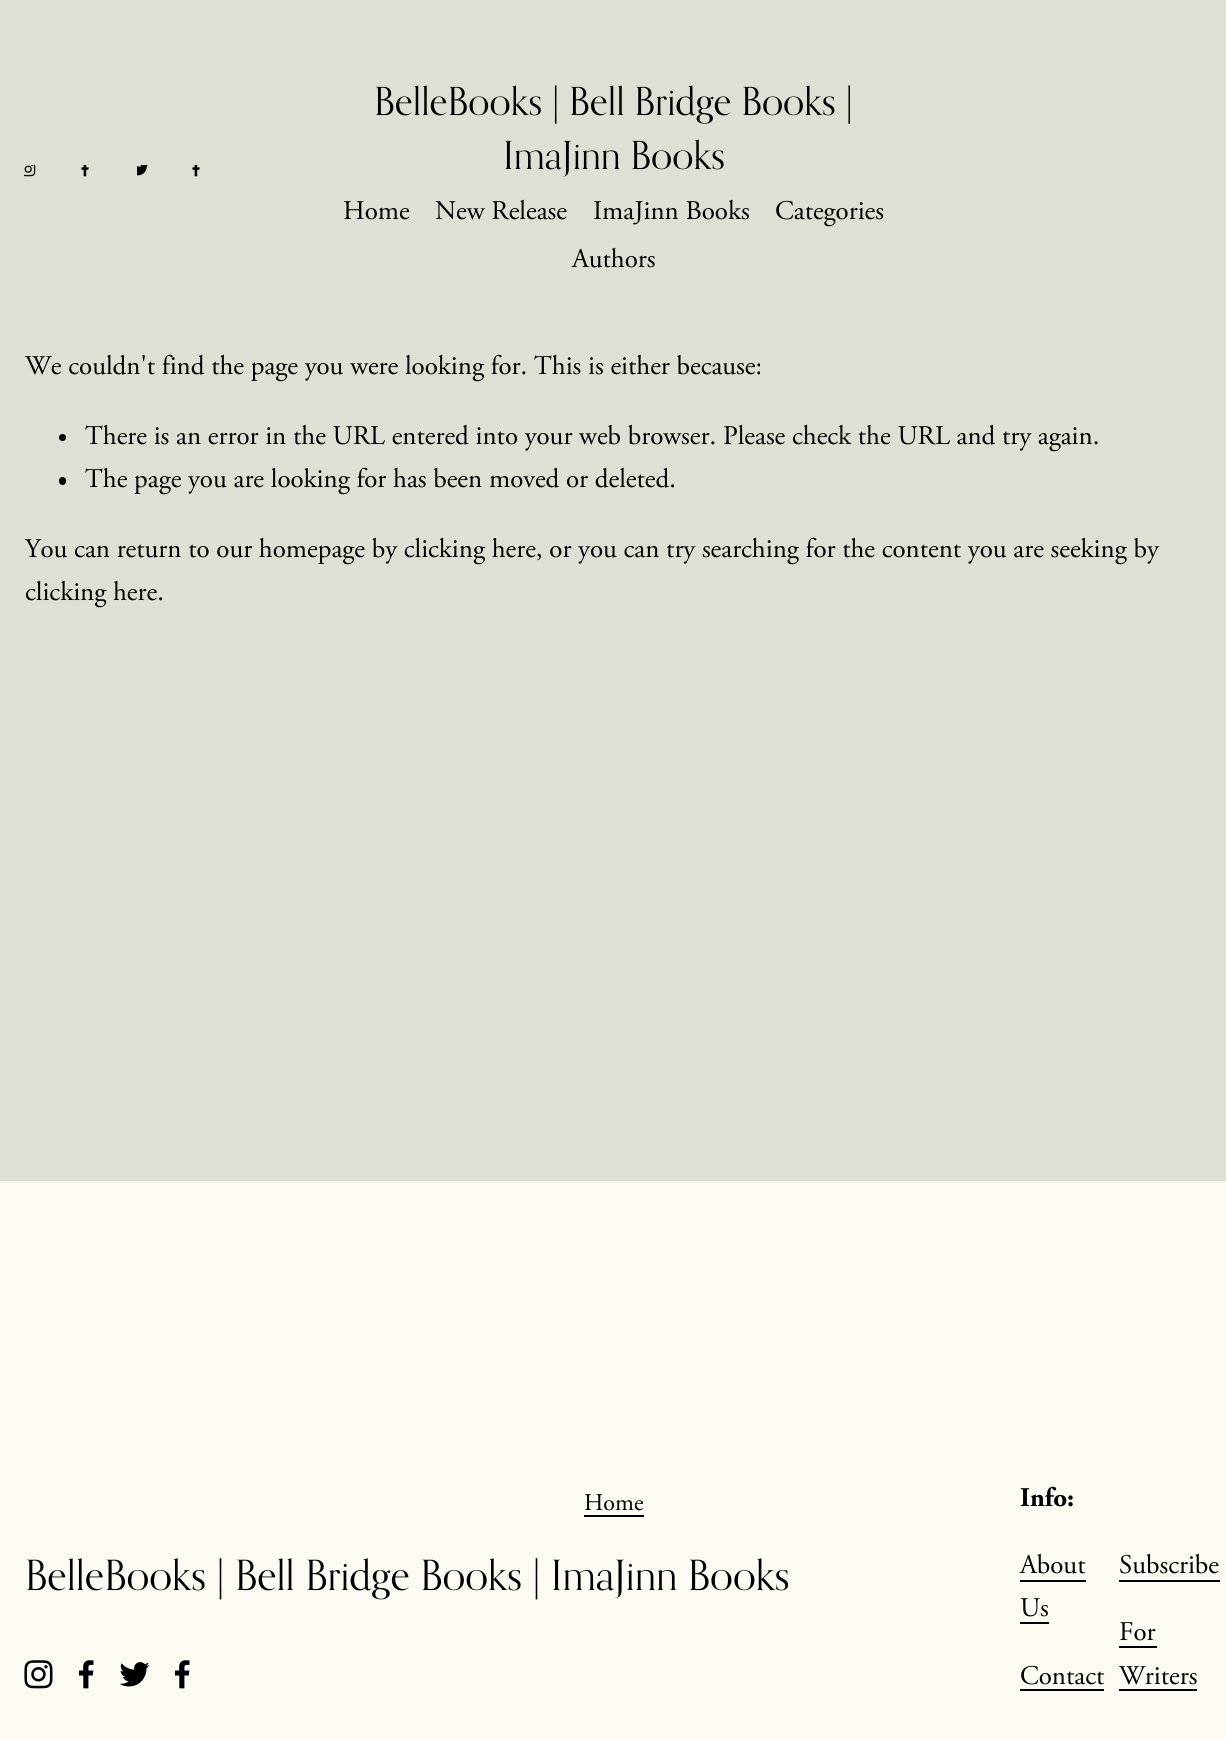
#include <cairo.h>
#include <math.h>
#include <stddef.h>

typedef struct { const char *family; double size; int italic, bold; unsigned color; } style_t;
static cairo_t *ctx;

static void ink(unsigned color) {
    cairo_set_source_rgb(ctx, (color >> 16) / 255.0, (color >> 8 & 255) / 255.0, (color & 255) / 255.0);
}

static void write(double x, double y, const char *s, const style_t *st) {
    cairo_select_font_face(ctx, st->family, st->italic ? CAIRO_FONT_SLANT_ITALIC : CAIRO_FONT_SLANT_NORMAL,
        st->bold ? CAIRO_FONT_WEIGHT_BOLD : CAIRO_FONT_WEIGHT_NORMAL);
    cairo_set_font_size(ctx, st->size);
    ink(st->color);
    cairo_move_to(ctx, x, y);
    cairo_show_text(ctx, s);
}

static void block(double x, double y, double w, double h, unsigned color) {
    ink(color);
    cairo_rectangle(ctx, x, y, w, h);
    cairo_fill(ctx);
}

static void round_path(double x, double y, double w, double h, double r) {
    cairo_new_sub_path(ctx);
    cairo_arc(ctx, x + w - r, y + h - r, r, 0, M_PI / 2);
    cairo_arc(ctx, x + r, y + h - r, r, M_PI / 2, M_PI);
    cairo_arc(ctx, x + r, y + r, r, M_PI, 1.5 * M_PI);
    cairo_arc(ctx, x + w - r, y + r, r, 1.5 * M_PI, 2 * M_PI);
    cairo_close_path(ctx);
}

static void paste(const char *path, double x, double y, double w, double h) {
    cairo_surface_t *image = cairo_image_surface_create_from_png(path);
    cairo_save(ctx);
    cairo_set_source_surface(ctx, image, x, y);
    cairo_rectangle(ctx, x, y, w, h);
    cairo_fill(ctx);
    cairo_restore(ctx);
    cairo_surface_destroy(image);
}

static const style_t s1 = {"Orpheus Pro", 38.75, 0, 0, 0x000000};
static const style_t s2 = {"Adobe Garamond", 26.95, 0, 0, 0x000000};
static const style_t s3 = {"Adobe Garamond", 24, 0, 0, 0x000000};
static const style_t s4 = {"Adobe Garamond", 26.95, 0, 1, 0x000000};
static const style_t s5 = {"Orpheus Pro", 41.7, 0, 0, 0x000000};

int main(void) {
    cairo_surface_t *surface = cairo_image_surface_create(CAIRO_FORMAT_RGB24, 1226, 1740);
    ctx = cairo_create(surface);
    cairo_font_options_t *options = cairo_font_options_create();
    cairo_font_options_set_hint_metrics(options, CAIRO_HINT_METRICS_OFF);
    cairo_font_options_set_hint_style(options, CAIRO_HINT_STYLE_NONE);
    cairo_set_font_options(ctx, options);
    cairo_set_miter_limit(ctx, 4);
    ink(0xe0dfd5);
    cairo_paint(ctx);
    paste("pic1.png", 24, 165, 12, 12);
    paste("pic2.png", 81, 165, 8, 12);
    paste("pic3.png", 137, 165, 11, 11);
    paste("pic2.png", 192, 165, 8, 12);
    write(374, 115, "BelleBooks | Bell Bridge Books |", &s1);
    write(503, 169, "ImaJinn Books", &s1);
    write(343, 219, "Home", &s2);
    write(435, 219, "New Release", &s2);
    write(593, 219, "ImaJinn Books", &s2);
    write(775, 219, "Categories", &s2);
    write(572, 267, "Authors", &s2);
    write(25, 374, "We couldn't find the page you were looking for. This is either because:", &s2);
    cairo_new_path(ctx);
    cairo_arc(ctx, 62.5, 437.5, 3.5, 0, 2 * M_PI);
    cairo_fill(ctx);
    write(85, 444, "There is an error in the URL entered into your web browser. Please check the URL and try again.", &s2);
    round_path(59, 477, 7, 8, 3.5);
    cairo_fill(ctx);
    write(85, 487, "The page you are looking for has been moved or deleted.", &s2);
    write(25, 557, "You can return to our homepage by clicking here, or you can try searching for the content you are seeking by", &s2);
    write(25, 600, "clicking here.", &s2);
    block(0, 1181, 1226, 559, 0xfdfaf3);
    write(584, 1510, "Home", &s3);
    block(584, 1515, 60, 2, 0x000000);
    write(1020, 1506, "Info:", &s4);
    write(1020, 1573, "About", &s2);
    block(1020, 1580, 66, 2, 0x000000);
    write(1020, 1616, "Us", &s2);
    block(1020, 1622, 29, 2, 0x000000);
    write(1020, 1684, "Contact", &s2);
    block(1020, 1689, 84, 2, 0x000000);
    write(25, 1590, "BelleBooks | Bell Bridge Books | ImaJinn Books", &s5);
    write(1119, 1573, "Subscribe", &s2);
    block(1119, 1580, 101, 2, 0x000000);
    write(1119, 1640, "For", &s2);
    block(1119, 1646, 38, 2, 0x000000);
    write(1119, 1684, "Writers", &s2);
    block(1119, 1689, 78, 2, 0x000000);
    paste("pic4.png", 24, 1660, 29, 29);
    paste("pic5.png", 78, 1660, 16, 29);
    paste("pic6.png", 120, 1662, 30, 25);
    paste("pic5.png", 174, 1660, 16, 29);
    cairo_surface_write_to_png(surface, "screenshot.png");
    cairo_font_options_destroy(options);
    cairo_destroy(ctx);
    cairo_surface_destroy(surface);
    return 0;
}
